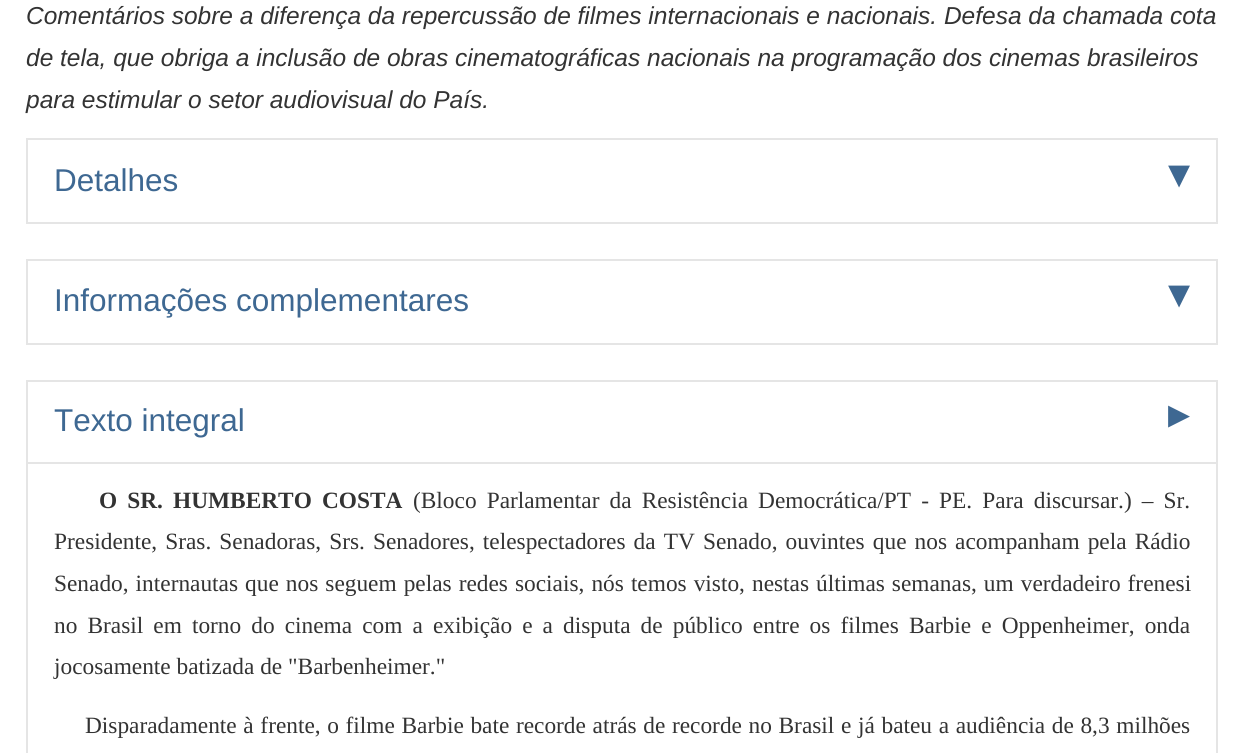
#include <cairo.h>
#include <math.h>
#include <stddef.h>

typedef struct { const char *family; double size; int italic, bold; unsigned color; } style_t;
static cairo_t *ctx;

static void ink(unsigned color) {
    cairo_set_source_rgb(ctx, (color >> 16) / 255.0, (color >> 8 & 255) / 255.0, (color & 255) / 255.0);
}

static void write(double x, double y, const char *s, const style_t *st) {
    cairo_select_font_face(ctx, st->family, st->italic ? CAIRO_FONT_SLANT_ITALIC : CAIRO_FONT_SLANT_NORMAL,
        st->bold ? CAIRO_FONT_WEIGHT_BOLD : CAIRO_FONT_WEIGHT_NORMAL);
    cairo_set_font_size(ctx, st->size);
    ink(st->color);
    cairo_move_to(ctx, x, y);
    cairo_show_text(ctx, s);
}

static void write_spaced(double x, double y, const char *s, double letter, double word) {
    cairo_move_to(ctx, x, y);
    while (*s) {
        char ch[5] = {0};
        int n = 0;
        do ch[n++] = *s++; while ((*s & 0xC0) == 0x80);
        cairo_show_text(ctx, ch);
        cairo_rel_move_to(ctx, letter + word * (*ch == ' '), 0);
    }
}

static void block(double x, double y, double w, double h, unsigned color) {
    ink(color);
    cairo_rectangle(ctx, x, y, w, h);
    cairo_fill(ctx);
}

static const style_t s1 = {"Liberation Sans", 24.5, 1, 0, 0x333333};
static const style_t s2 = {"Liberation Sans", 31.5, 0, 0, 0x3e6892};
static const style_t s3 = {"DejaVu Sans", 44, 0, 0, 0x3e6892};
static const style_t s4 = {"Liberation Serif", 23.35, 0, 0, 0x333333};

int main(void) {
    cairo_surface_t *surface = cairo_image_surface_create(CAIRO_FORMAT_RGB24, 1243, 753);
    ctx = cairo_create(surface);
    cairo_font_options_t *options = cairo_font_options_create();
    cairo_font_options_set_hint_metrics(options, CAIRO_HINT_METRICS_OFF);
    cairo_font_options_set_hint_style(options, CAIRO_HINT_STYLE_NONE);
    cairo_set_font_options(ctx, options);
    cairo_set_miter_limit(ctx, 4);
    ink(0xffffff);
    cairo_paint(ctx);
    write(26, 24, "Comentários sobre a diferença da repercussão de filmes internacionais e nacionais. Defesa da chamada cota", &s1);
    write(26, 66, "de tela, que obriga a inclusão de obras cinematográficas nacionais na programação dos cinemas brasileiros", &s1);
    write(26, 108, "para estimular o setor audiovisual do País.", &s1);
    cairo_rectangle(ctx, 27, 139, 1190, 84);
    ink(0xe5e5e5);
    cairo_stroke(ctx);
    write(54, 191, "Detalhes", &s2);
    write(1168, 188, "▾", &s3);
    cairo_rectangle(ctx, 27, 260, 1190, 84);
    ink(0xe5e5e5);
    cairo_stroke(ctx);
    write(54, 311, "Informações complementares", &s2);
    write(1168, 308, "▾", &s3);
    cairo_rectangle(ctx, 27, 381, 1190, 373);
    ink(0xe5e5e5);
    cairo_stroke(ctx);
    write(54, 431, "Texto integral", &s2);
    write(1168, 428, "▸", &s3);
    block(28, 462, 1188, 2, 0xe5e5e5);
    cairo_select_font_face(ctx, "Liberation Serif", CAIRO_FONT_SLANT_NORMAL, CAIRO_FONT_WEIGHT_BOLD);
    cairo_set_font_size(ctx, 23.35);
    ink(0x333333);
    write_spaced(99, 508, "O SR. HUMBERTO COSTA", 0, 4.25);
    cairo_select_font_face(ctx, "Liberation Serif", CAIRO_FONT_SLANT_NORMAL, CAIRO_FONT_WEIGHT_NORMAL);
    write_spaced(413, 508, "(Bloco Parlamentar da Resistência Democrática/PT - PE. Para discursar.) – Sr.", 0, 4.25);
    write_spaced(54, 549, "Presidente, Sras. Senadoras, Srs. Senadores, telespectadores da TV Senado, ouvintes que nos acompanham pela Rádio", 0, 2.25);
    write_spaced(54, 591, "Senado, internautas que nos seguem pelas redes sociais, nós temos visto, nestas últimas semanas, um verdadeiro frenesi", 0, 1.2);
    write_spaced(54, 633, "no Brasil em torno do cinema com a exibição e a disputa de público entre os filmes Barbie e Oppenheimer, onda", 0, 4.25);
    write(54, 674, "jocosamente batizada de \"Barbenheimer.\"", &s4);
    write_spaced(85, 733, "Disparadamente à frente, o filme Barbie bate recorde atrás de recorde no Brasil e já bateu a audiência de 8,3 milhões", 0, 0.8);
    cairo_surface_write_to_png(surface, "screenshot.png");
    cairo_font_options_destroy(options);
    cairo_destroy(ctx);
    cairo_surface_destroy(surface);
    return 0;
}
